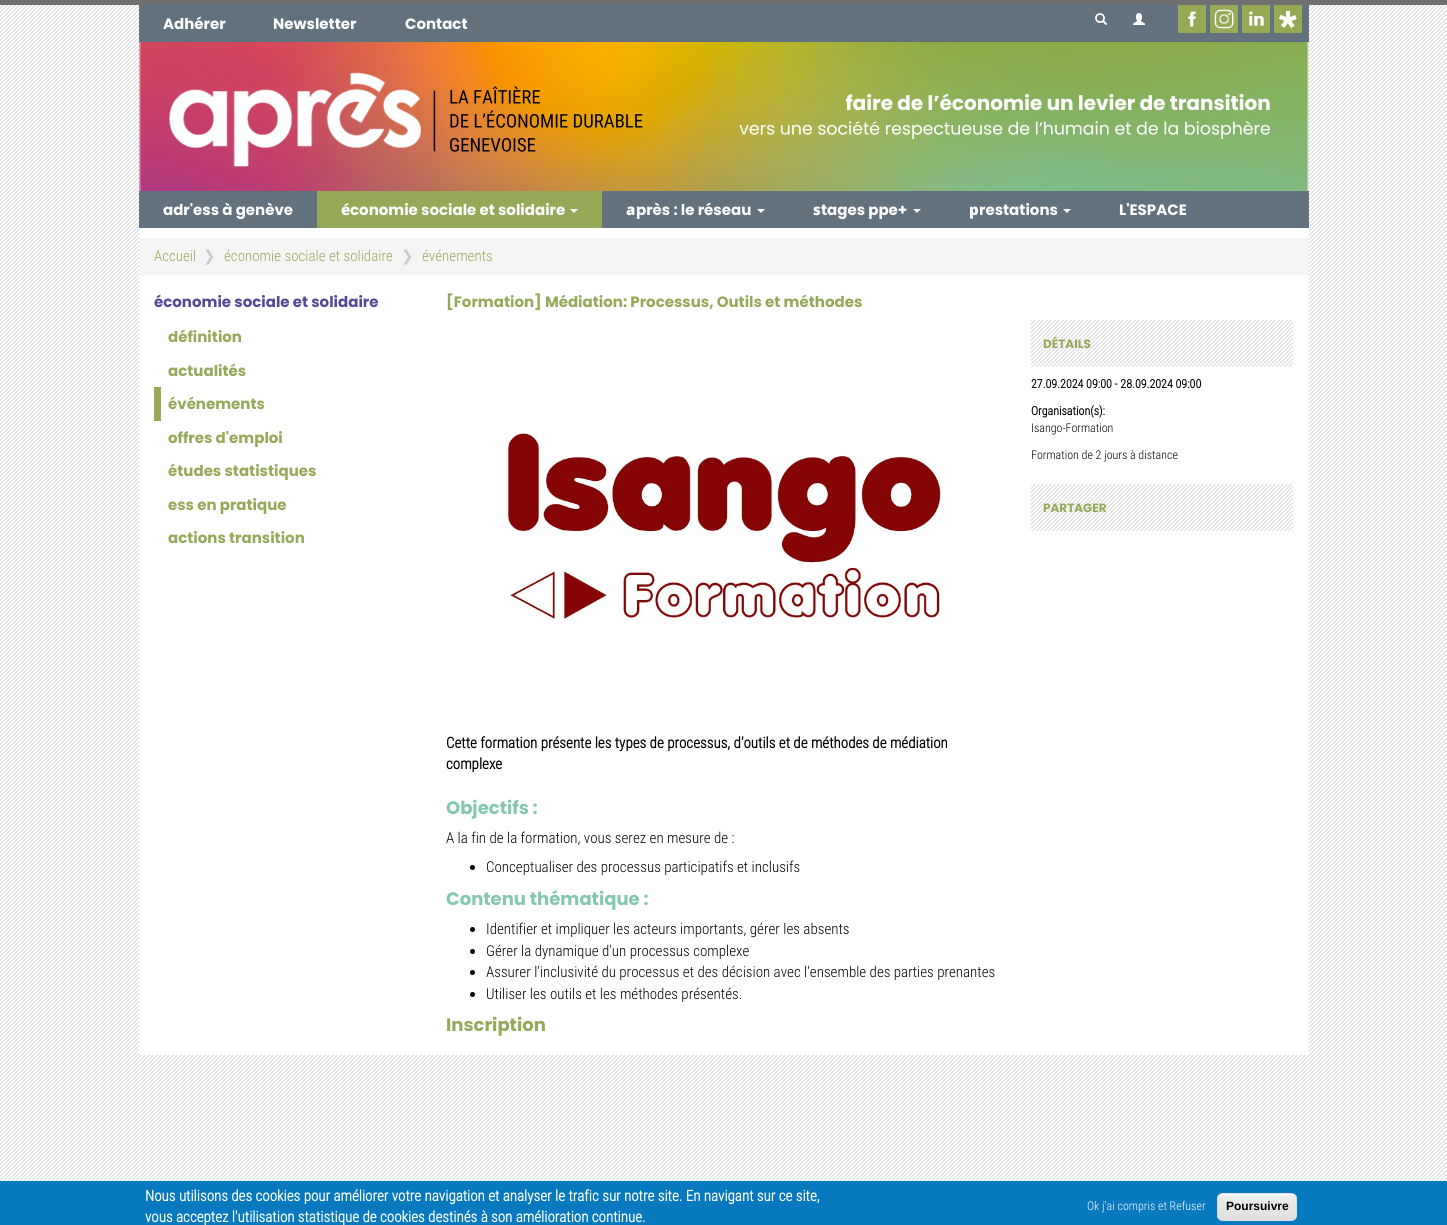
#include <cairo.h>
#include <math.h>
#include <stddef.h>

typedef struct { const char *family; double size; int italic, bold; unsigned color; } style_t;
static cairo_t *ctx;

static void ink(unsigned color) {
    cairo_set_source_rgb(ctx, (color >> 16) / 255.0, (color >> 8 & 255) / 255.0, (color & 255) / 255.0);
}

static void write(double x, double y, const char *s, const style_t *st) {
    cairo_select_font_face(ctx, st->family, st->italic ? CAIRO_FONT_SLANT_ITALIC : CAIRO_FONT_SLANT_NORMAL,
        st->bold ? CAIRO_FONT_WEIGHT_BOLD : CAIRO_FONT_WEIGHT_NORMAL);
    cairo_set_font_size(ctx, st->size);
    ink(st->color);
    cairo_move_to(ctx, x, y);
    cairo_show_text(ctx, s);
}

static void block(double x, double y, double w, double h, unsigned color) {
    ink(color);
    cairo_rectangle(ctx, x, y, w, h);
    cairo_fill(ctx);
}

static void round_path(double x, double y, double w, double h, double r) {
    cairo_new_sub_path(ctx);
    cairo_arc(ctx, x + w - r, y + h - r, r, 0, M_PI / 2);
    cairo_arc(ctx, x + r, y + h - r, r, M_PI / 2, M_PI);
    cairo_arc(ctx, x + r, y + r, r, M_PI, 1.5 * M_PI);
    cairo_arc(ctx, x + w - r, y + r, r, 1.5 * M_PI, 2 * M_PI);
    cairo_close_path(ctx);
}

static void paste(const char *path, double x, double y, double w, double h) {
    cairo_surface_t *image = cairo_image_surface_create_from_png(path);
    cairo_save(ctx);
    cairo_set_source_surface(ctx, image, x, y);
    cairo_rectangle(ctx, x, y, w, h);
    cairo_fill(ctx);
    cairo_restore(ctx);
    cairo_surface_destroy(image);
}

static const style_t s1 = {"Poppins", 15, 0, 1, 0xffffff};
static const style_t s2 = {"Noto Sans Black", 15, 0, 0, 0xffffff};
static const style_t s3 = {"Roboto Condensed Light", 15, 0, 0, 0x96a958};
static const style_t s4 = {"DejaVu Sans", 15, 0, 0, 0xcccccc};
static const style_t s5 = {"Poppins", 15, 0, 1, 0x544998};
static const style_t s6 = {"Poppins", 15, 0, 1, 0x96a958};
static const style_t s7 = {"Poppins", 12, 0, 1, 0x96a958};
static const style_t s8 = {"Roboto Condensed", 12, 0, 1, 0x000000};
static const style_t s9 = {"Roboto Condensed Light", 12, 0, 0, 0x000000};
static const style_t s10 = {"Roboto Condensed", 15, 0, 1, 0x000000};
static const style_t s11 = {"Poppins", 18, 0, 1, 0x83c7ad};
static const style_t s12 = {"Roboto Condensed Light", 15, 0, 0, 0x000000};
static const style_t s13 = {"Poppins", 18, 0, 1, 0x96a958};
static const style_t s14 = {"Roboto Condensed", 15, 0, 1, 0xffffff};
static const style_t s15 = {"Roboto Condensed Light", 12, 0, 0, 0xffffff};
static const style_t s16 = {"Liberation Sans", 12, 0, 1, 0x000000};

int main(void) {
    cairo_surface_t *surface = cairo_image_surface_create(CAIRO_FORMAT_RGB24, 1447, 1225);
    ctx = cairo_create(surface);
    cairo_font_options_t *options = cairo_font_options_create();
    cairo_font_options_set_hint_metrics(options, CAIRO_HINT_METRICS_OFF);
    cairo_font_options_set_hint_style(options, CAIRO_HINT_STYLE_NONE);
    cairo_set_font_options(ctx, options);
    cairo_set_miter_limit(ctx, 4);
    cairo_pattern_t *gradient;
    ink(0xffffff);
    cairo_paint(ctx);
    paste("pic1.png", 0, 5, 1447, 1176);
    block(0, 0, 1447, 5, 0x707070);
    block(139, 5, 1170, 37, 0x62717e);
    write(163, 29, "Adhérer", &s1);
    write(273, 29, "Newsletter", &s1);
    write(405, 29, "Contact", &s1);
    paste("pic2.png", 1095, 13, 12, 12);
    paste("pic3.png", 1133, 13, 12, 12);
    paste("pic4.png", 1178, 5, 28, 28);
    paste("pic5.png", 1210, 5, 28, 28);
    paste("pic6.png", 1242, 5, 28, 28);
    paste("pic7.png", 1274, 5, 28, 28);
    paste("pic8.png", 139, 42, 1170, 149);
    block(139, 191, 1170, 37, 0x62717e);
    write(163, 215, "adr'ess à genève", &s1);
    block(317, 191, 285, 37, 0x96a958);
    write(341, 215, "é", &s2);
    write(350, 215, "conomie sociale et solidaire", &s1);
    cairo_new_path(ctx);
    cairo_move_to(ctx, 570, 209);
    cairo_line_to(ctx, 578, 209);
    cairo_line_to(ctx, 574, 213);
    cairo_close_path(ctx);
    cairo_fill(ctx);
    write(626, 215, "a", &s2);
    write(636, 215, "près : le réseau", &s1);
    cairo_new_path(ctx);
    cairo_move_to(ctx, 757, 209);
    cairo_line_to(ctx, 765, 209);
    cairo_line_to(ctx, 761, 213);
    cairo_close_path(ctx);
    cairo_fill(ctx);
    write(813, 215, "s", &s2);
    write(821, 215, "tages ppe+", &s1);
    cairo_new_path(ctx);
    cairo_move_to(ctx, 913, 209);
    cairo_line_to(ctx, 921, 209);
    cairo_line_to(ctx, 917, 213);
    cairo_close_path(ctx);
    cairo_fill(ctx);
    write(969, 215, "p", &s2);
    write(979, 215, "restations", &s1);
    cairo_new_path(ctx);
    cairo_move_to(ctx, 1063, 209);
    cairo_line_to(ctx, 1071, 209);
    cairo_line_to(ctx, 1067, 213);
    cairo_close_path(ctx);
    cairo_fill(ctx);
    write(1119, 215, "L'ESPACE", &s1);
    block(139, 228, 1170, 827, 0xffffff);
    block(139, 238, 1170, 37, 0xf5f5f5);
    write(154, 261, "Accueil", &s3);
    write(203, 261, "❯", &s4);
    write(224, 261, "économie sociale et solidaire", &s3);
    write(401, 261, "❯", &s4);
    write(422, 261, "événements", &s3);
    write(154, 307, "économie sociale et solidaire", &s5);
    write(168, 342, "définition", &s6);
    write(168, 376, "actualités", &s6);
    block(154, 387, 7, 34, 0x96a958);
    write(168, 409, "événements", &s6);
    write(168, 443, "offres d'emploi", &s6);
    write(168, 476, "études statistiques", &s6);
    write(168, 510, "ess en pratique", &s6);
    write(168, 543, "actions transition", &s6);
    write(446, 307, "[Formation] Médiation: Processus, Outils et méthodes", &s6);
    paste("pic9.png", 1031, 320, 262, 47);
    write(1043, 348, "DÉTAILS", &s7);
    write(1031, 388, "27.09.2024 09:00 - 28.09.2024 09:00", &s8);
    write(1031, 415, "Organisation(s):", &s8);
    write(1031, 432, "Isango-Formation", &s9);
    write(1031, 459, "Formation de 2 jours à distance", &s9);
    paste("pic9.png", 1031, 484, 262, 47);
    write(1043, 512, "PARTAGER", &s7);
    paste("pic10.png", 508, 433, 433, 186);
    write(446, 748, "Cette formation présente les types de processus, d’outils et de méthodes de médiation", &s10);
    write(446, 769, "complexe", &s10);
    write(446, 814, "Objectifs :", &s11);
    write(446, 843, "A la fin de la formation, vous serez en mesure de :", &s12);
    cairo_new_path(ctx);
    cairo_arc(ctx, 472.5, 867.5, 2.5, 0, 2 * M_PI);
    cairo_fill(ctx);
    write(486, 872, "Conceptualiser des processus participatifs et inclusifs", &s12);
    write(446, 905, "Contenu thématique :", &s11);
    ink(0x000000);
    cairo_new_path(ctx);
    cairo_arc(ctx, 472.5, 929.5, 2.5, 0, 2 * M_PI);
    cairo_fill(ctx);
    write(486, 934, "Identifier et impliquer les acteurs importants, gérer les absents", &s12);
    cairo_new_path(ctx);
    cairo_arc(ctx, 472.5, 951.5, 2.5, 0, 2 * M_PI);
    cairo_fill(ctx);
    write(486, 956, "Gérer la dynamique d’un processus complexe", &s12);
    cairo_new_path(ctx);
    cairo_arc(ctx, 472.5, 972.5, 2.5, 0, 2 * M_PI);
    cairo_fill(ctx);
    write(486, 977, "Assurer l’inclusivité du processus et des décision avec l’ensemble des parties prenantes", &s12);
    cairo_new_path(ctx);
    cairo_arc(ctx, 472.5, 994.5, 2.5, 0, 2 * M_PI);
    cairo_fill(ctx);
    write(486, 999, "Utiliser les outils et les méthodes présentés.", &s12);
    write(446, 1031, "Inscription", &s13);
    block(0, 1181, 1447, 44, 0x0779bf);
    write(145, 1201, "Nous utilisons des cookies pour améliorer votre navigation et analyser le trafic sur notre site. En navigant sur ce site,", &s14);
    write(145, 1222, "vous acceptez l'utilisation statistique de cookies destinés à son amélioration continue.", &s14);
    write(1087, 1210, "Ok j'ai compris et Refuser", &s15);
    cairo_save(ctx);
    round_path(1217, 1193, 80, 28, 6);
    cairo_clip(ctx);
    gradient = cairo_pattern_create_linear(1257, 1194, 1257, 1220);
    cairo_pattern_add_color_stop_rgba(gradient, 0.05, 0.929, 0.929, 0.929, 1);
    cairo_pattern_add_color_stop_rgba(gradient, 1, 0.875, 0.875, 0.875, 1);
    cairo_set_source(ctx, gradient);
    cairo_pattern_destroy(gradient);
    cairo_rectangle(ctx, 1217, 1194, 80, 26);
    cairo_fill(ctx);
    cairo_restore(ctx);
    cairo_new_path(ctx);
    cairo_move_to(ctx, 1223, 1195);
    cairo_line_to(ctx, 1291, 1195);
    cairo_curve_to(ctx, 1294, 1195, 1296, 1197, 1296, 1200);
    cairo_curve_to(ctx, 1296, 1191, 1285, 1194, 1280, 1194);
    cairo_line_to(ctx, 1234, 1194);
    cairo_curve_to(ctx, 1229, 1194, 1218, 1191, 1218, 1200);
    cairo_curve_to(ctx, 1218, 1197, 1220, 1195, 1223, 1195);
    cairo_close_path(ctx);
    cairo_fill(ctx);
    round_path(1217.5, 1193.5, 79, 27, 5.5);
    ink(0xdcdcdc);
    cairo_set_line_width(ctx, 1);
    cairo_stroke(ctx);
    write(1226, 1210, "Poursuivre", &s16);
    cairo_surface_write_to_png(surface, "screenshot.png");
    cairo_font_options_destroy(options);
    cairo_destroy(ctx);
    cairo_surface_destroy(surface);
    return 0;
}
